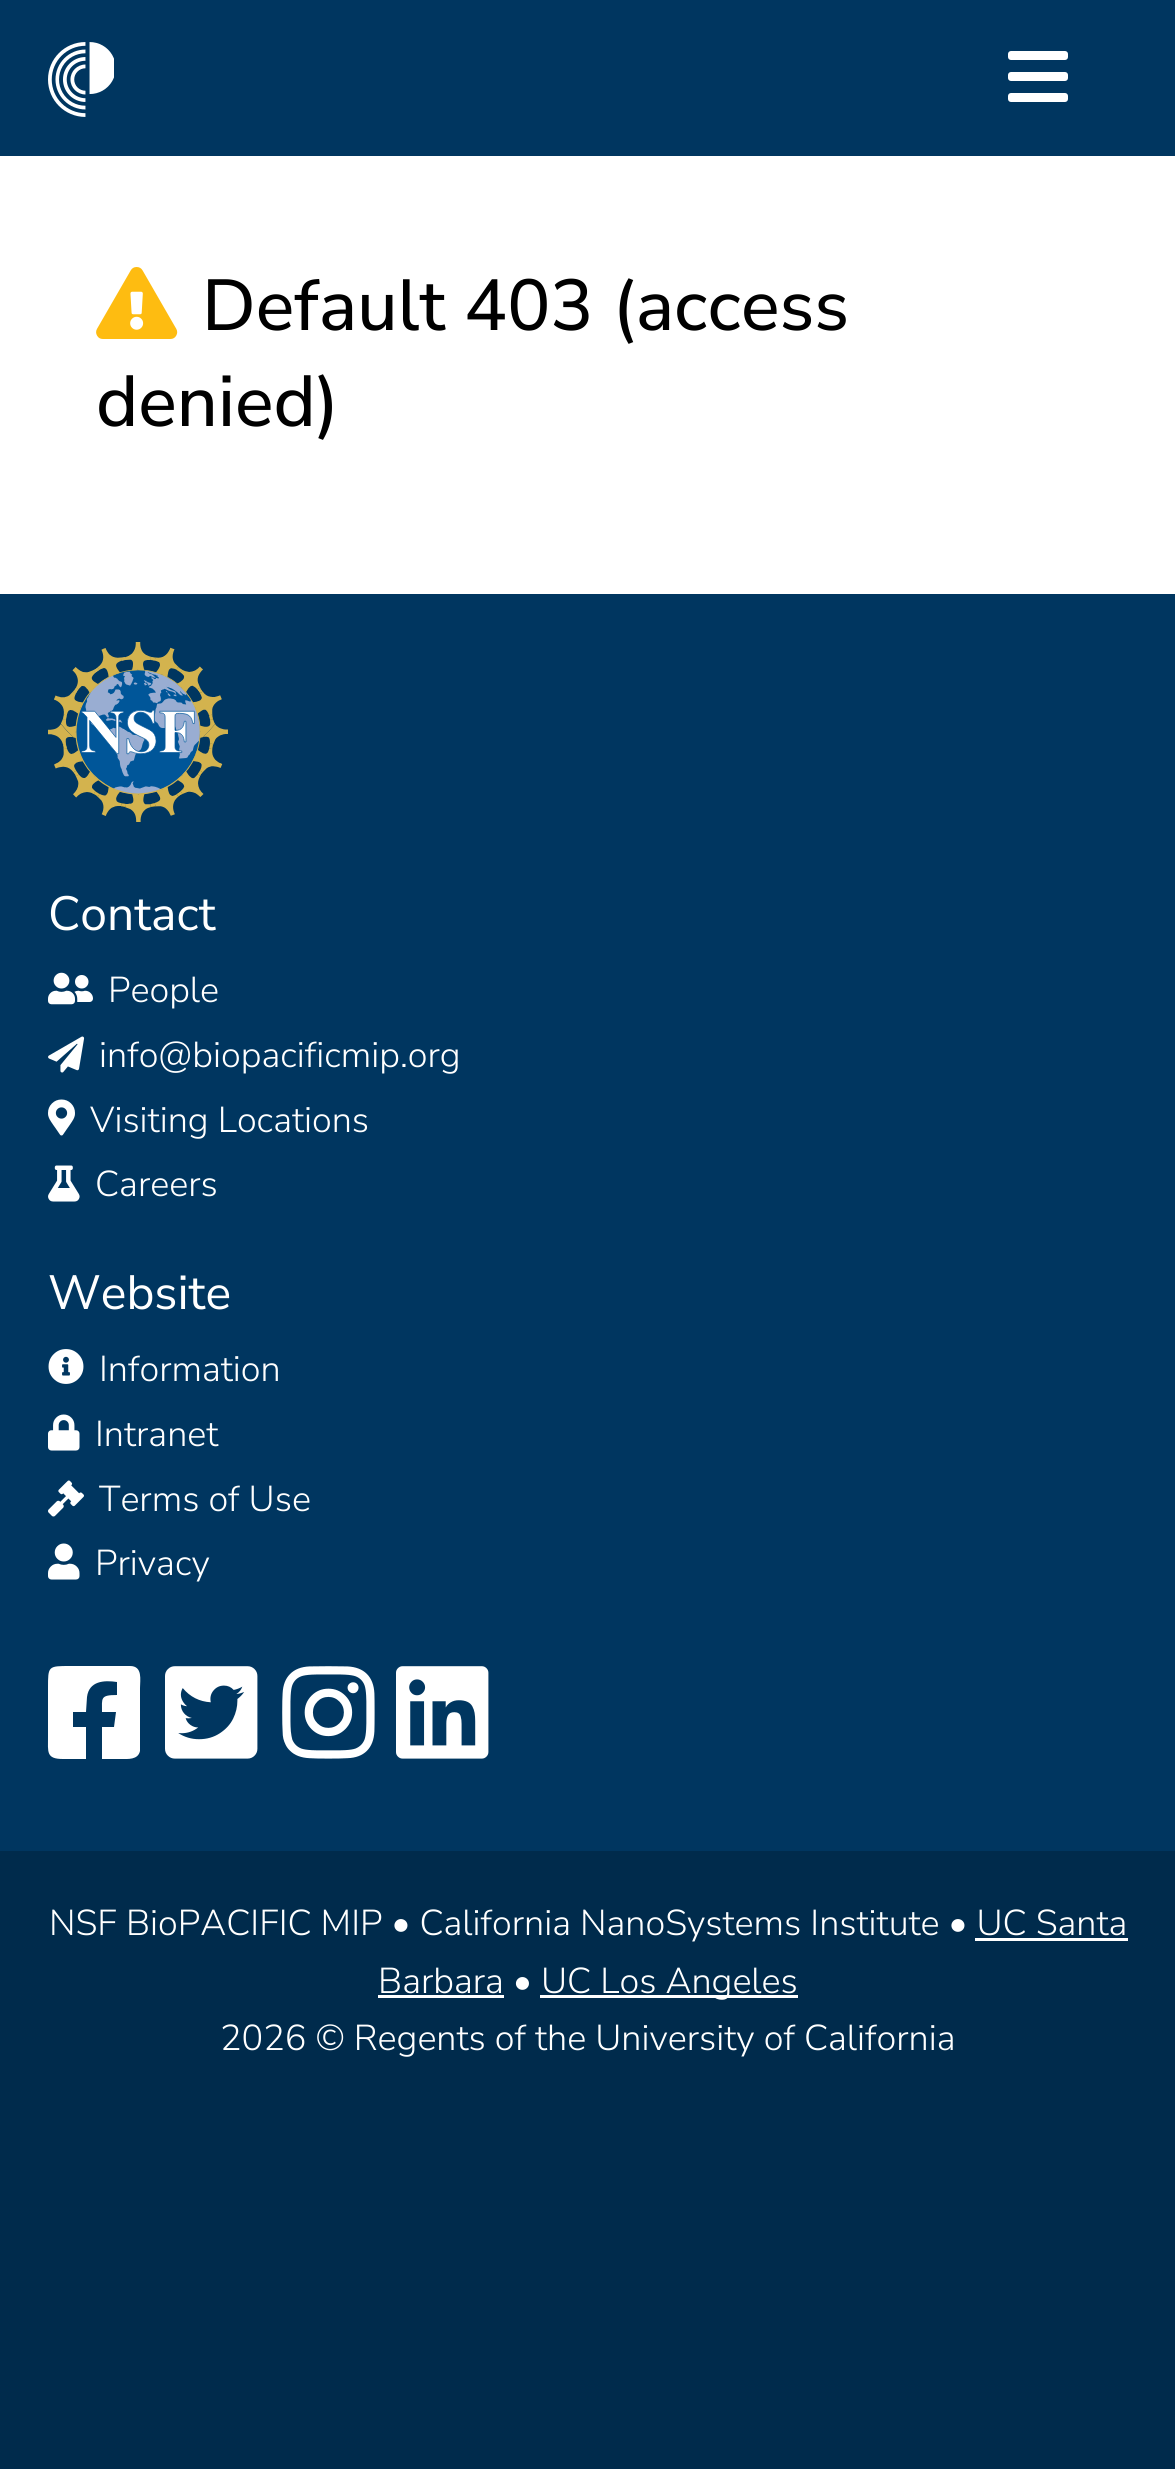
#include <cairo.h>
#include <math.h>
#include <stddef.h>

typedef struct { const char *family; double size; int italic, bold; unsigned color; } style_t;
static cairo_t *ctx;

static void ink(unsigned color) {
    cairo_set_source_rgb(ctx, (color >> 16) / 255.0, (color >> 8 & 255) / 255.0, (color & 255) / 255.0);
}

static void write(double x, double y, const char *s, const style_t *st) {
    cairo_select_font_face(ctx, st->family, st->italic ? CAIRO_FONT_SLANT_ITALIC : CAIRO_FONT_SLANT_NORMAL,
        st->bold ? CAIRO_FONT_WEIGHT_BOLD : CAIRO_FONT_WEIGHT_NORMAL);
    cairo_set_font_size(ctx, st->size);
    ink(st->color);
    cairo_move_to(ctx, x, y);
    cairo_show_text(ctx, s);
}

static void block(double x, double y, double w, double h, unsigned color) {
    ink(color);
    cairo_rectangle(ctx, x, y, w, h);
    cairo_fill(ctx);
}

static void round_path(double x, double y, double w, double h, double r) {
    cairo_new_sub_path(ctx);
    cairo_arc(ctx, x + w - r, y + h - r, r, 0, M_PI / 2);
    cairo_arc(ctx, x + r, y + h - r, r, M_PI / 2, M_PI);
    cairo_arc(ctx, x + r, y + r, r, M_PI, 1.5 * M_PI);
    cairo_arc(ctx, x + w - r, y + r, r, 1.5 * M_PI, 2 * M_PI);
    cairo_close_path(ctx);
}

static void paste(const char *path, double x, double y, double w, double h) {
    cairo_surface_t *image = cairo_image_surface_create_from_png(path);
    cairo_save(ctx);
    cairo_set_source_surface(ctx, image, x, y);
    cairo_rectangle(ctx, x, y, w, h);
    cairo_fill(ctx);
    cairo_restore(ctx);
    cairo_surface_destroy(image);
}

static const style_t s1 = {"Nunito Sans Medium", 72, 0, 0, 0x000000};
static const style_t s2 = {"Nunito Sans", 48, 0, 0, 0xffffff};
static const style_t s3 = {"Nunito Sans Light", 36, 0, 0, 0xffffff};

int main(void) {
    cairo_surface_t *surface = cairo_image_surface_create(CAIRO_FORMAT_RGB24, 1175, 2469);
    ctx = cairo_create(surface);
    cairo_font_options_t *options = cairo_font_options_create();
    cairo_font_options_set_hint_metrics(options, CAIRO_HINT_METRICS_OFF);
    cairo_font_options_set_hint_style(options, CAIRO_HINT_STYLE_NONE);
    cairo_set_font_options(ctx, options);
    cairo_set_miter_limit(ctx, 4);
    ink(0x002b4c);
    cairo_paint(ctx);
    block(0, 0, 1175, 156, 0x003660);
    paste("pic1.png", 48, 42, 66, 75);
    ink(0xffffff);
    round_path(1008, 51, 60, 9, 3);
    cairo_fill(ctx);
    round_path(1008, 72, 60, 9, 3);
    cairo_fill(ctx);
    round_path(1008, 93, 60, 9, 3);
    cairo_fill(ctx);
    block(0, 156, 1175, 438, 0xffffff);
    paste("pic2.png", 96, 267, 82, 72);
    write(202, 330, "Default 403 (access", &s1);
    write(96, 426, "denied)", &s1);
    block(0, 594, 1175, 1257, 0x003660);
    paste("pic3.png", 48, 642, 180, 180);
    write(48, 930, "Contact", &s2);
    paste("pic4.png", 48, 972, 45, 33);
    write(108, 1002, "People", &s3);
    paste("pic5.png", 48, 1036, 37, 37);
    write(99, 1067, "info@biopacificmip.org", &s3);
    paste("pic6.png", 48, 1099, 27, 37);
    write(90, 1132, "Visiting Locations", &s3);
    paste("pic7.png", 48, 1165, 32, 37);
    write(95, 1196, "Careers", &s3);
    write(48, 1309, "Website", &s2);
    paste("pic8.png", 48, 1349, 36, 35);
    write(99, 1381, "Information", &s3);
    paste("pic9.png", 48, 1414, 32, 37);
    write(95, 1446, "Intranet", &s3);
    paste("pic10.png", 48, 1480, 36, 37);
    write(99, 1511, "Terms of Use", &s3);
    paste("pic11.png", 48, 1543, 32, 37);
    write(95, 1575, "Privacy", &s3);
    cairo_new_path(ctx);
    cairo_move_to(ctx, 130, 1666);
    cairo_curve_to(ctx, 143, 1666, 140, 1680, 140, 1688);
    cairo_line_to(ctx, 140, 1751);
    cairo_curve_to(ctx, 138, 1760, 128, 1759, 121, 1759);
    cairo_line_to(ctx, 102, 1759);
    cairo_line_to(ctx, 102, 1727);
    cairo_line_to(ctx, 114, 1727);
    cairo_line_to(ctx, 116, 1712);
    cairo_line_to(ctx, 102, 1712);
    cairo_curve_to(ctx, 102, 1698, 100, 1695, 117, 1695);
    cairo_line_to(ctx, 117, 1682);
    cairo_curve_to(ctx, 104, 1680, 89, 1681, 87, 1697);
    cairo_line_to(ctx, 86, 1712);
    cairo_line_to(ctx, 73, 1712);
    cairo_line_to(ctx, 73, 1727);
    cairo_line_to(ctx, 86, 1727);
    cairo_line_to(ctx, 86, 1759);
    cairo_line_to(ctx, 63, 1759);
    cairo_curve_to(ctx, 46, 1759, 48, 1752, 48, 1737);
    cairo_line_to(ctx, 48, 1688);
    cairo_curve_to(ctx, 48, 1666, 48, 1666, 70, 1666);
    cairo_close_path(ctx);
    cairo_fill(ctx);
    paste("pic12.png", 165, 1666, 93, 93);
    paste("pic13.png", 282, 1666, 93, 93);
    paste("pic14.png", 396, 1666, 93, 93);
    write(49, 1935, "NSF BioPACIFIC MIP • California NanoSystems Institute • UC Santa", &s3);
    write(378, 1993, "Barbara •", &s3);
    block(975, 1938, 153, 3, 0xffffff);
    block(378, 1995, 126, 3, 0xffffff);
    block(540, 1995, 258, 3, 0xffffff);
    write(541, 1993, "UC Los Angeles", &s3);
    write(220, 2050, "2026 © Regents of the University of California", &s3);
    cairo_surface_write_to_png(surface, "screenshot.png");
    cairo_font_options_destroy(options);
    cairo_destroy(ctx);
    cairo_surface_destroy(surface);
    return 0;
}
